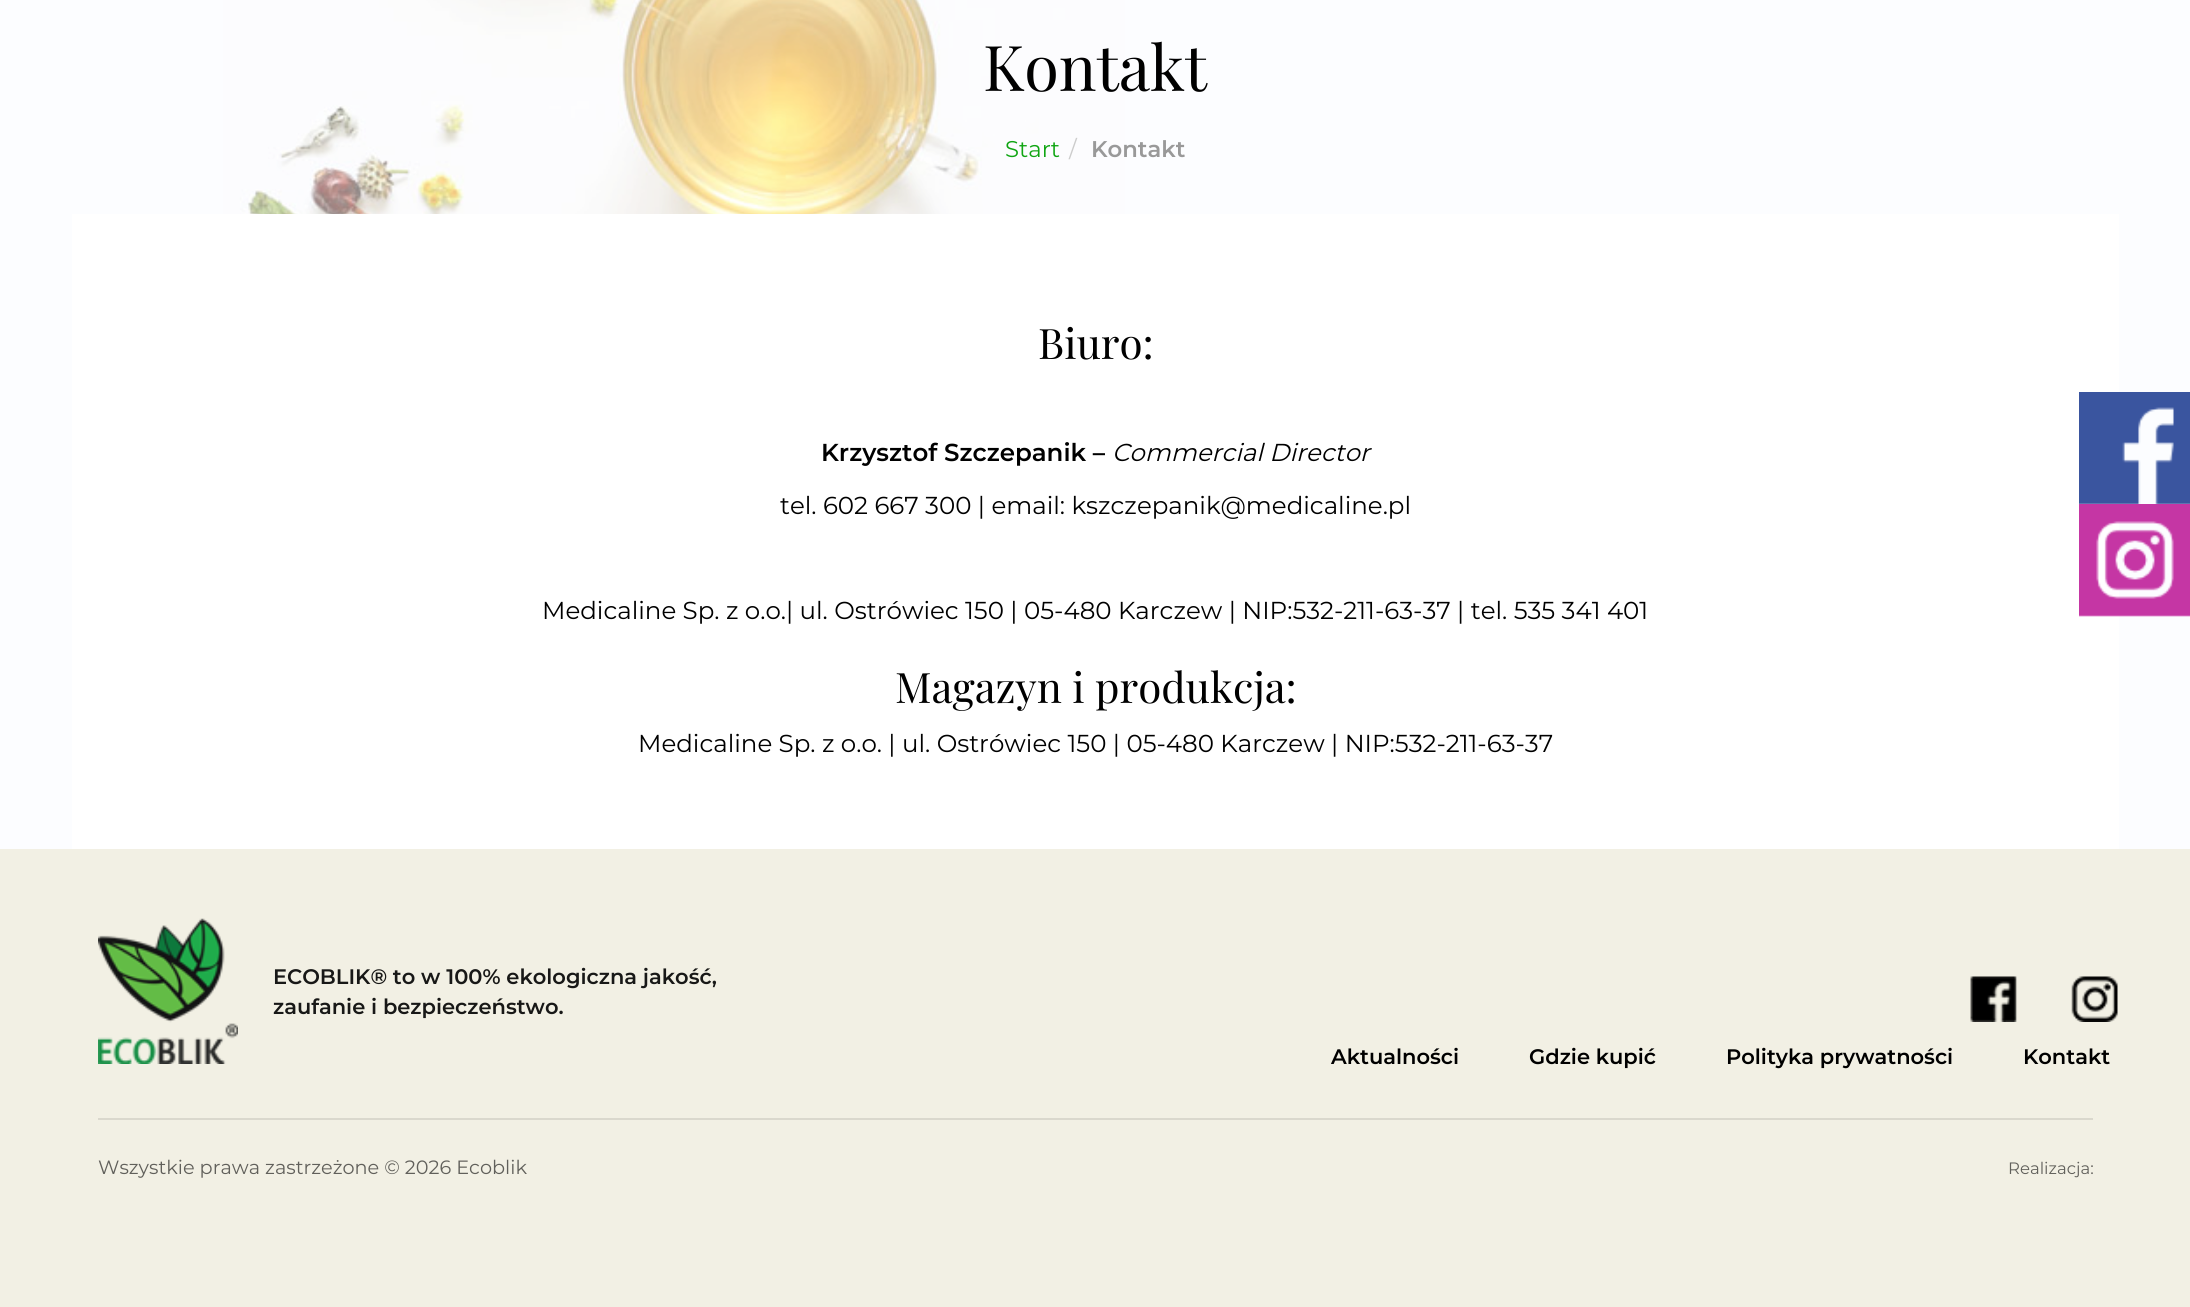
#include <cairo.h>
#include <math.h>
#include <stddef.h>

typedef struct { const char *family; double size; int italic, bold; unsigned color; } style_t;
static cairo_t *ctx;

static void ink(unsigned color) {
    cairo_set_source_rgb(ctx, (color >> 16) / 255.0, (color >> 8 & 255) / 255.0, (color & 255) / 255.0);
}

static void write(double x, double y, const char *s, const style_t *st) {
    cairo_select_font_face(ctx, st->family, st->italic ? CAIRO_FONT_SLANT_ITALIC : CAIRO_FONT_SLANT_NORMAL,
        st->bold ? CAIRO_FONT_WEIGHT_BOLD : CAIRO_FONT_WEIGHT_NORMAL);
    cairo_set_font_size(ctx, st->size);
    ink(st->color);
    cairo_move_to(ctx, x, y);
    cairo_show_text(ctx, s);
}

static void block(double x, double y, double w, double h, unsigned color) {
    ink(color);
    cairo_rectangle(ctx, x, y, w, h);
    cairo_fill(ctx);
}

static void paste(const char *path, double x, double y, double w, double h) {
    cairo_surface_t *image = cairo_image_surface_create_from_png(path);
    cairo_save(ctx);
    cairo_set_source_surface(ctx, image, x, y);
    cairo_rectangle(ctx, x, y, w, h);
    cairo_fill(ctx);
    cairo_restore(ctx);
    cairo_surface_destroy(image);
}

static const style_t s1 = {"Playfair Display", 63, 0, 0, 0x000000};
static const style_t s2 = {"Montserrat", 22.75, 0, 0, 0x10a513};
static const style_t s3 = {"Montserrat", 22.75, 0, 0, 0xcccccc};
static const style_t s4 = {"Montserrat SemiBold", 22.75, 0, 0, 0x999999};
static const style_t s5 = {"Playfair Display", 42, 0, 0, 0x000000};
static const style_t s6 = {"Montserrat SemiBold", 24.5, 0, 0, 0x000000};
static const style_t s7 = {"Montserrat", 24.5, 1, 0, 0x000000};
static const style_t s8 = {"Montserrat", 24.5, 0, 0, 0x000000};
static const style_t s9 = {"Montserrat SemiBold", 21, 0, 0, 0x181817};
static const style_t s10 = {"Montserrat SemiBold", 21, 0, 0, 0x000000};
static const style_t s11 = {"Montserrat", 19.25, 0, 0, 0x61605b};
static const style_t s12 = {"Montserrat", 16.5, 0, 0, 0x61605b};

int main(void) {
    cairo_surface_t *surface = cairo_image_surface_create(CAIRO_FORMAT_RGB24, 2190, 1307);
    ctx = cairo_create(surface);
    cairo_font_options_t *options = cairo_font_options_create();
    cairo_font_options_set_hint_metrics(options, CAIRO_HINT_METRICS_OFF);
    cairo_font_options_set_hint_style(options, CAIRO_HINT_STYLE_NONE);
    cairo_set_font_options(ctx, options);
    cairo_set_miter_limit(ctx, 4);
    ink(0xfcfdff);
    cairo_paint(ctx);
    paste("pic1.png", 223, 0, 902, 214);
    write(983, 91, "Kontakt", &s1);
    write(1005, 157, "Start", &s2);
    write(1069, 157, "/", &s3);
    write(1091, 157, "Kontakt", &s4);
    block(72, 214, 2047, 635, 0xffffff);
    write(1038, 359, "Biuro:", &s5);
    write(821, 461, "Krzysztof Szczepanik –", &s6);
    write(1112, 461, "Commercial Director", &s7);
    write(780, 514, "tel. 602 667 300 | email: kszczepanik@medicaline.pl", &s8);
    write(542, 619, "Medicaline Sp. z o.o.| ul. Ostrówiec 150 | 05-480 Karczew | NIP:532-211-63-37 | tel. 535 341 401", &s8);
    write(895, 703, "Magazyn i produkcja:", &s5);
    write(638, 752, "Medicaline Sp. z o.o. | ul. Ostrówiec 150 | 05-480 Karczew | NIP:532-211-63-37", &s8);
    block(0, 849, 2190, 458, 0xf2f0e4);
    paste("pic2.png", 2079, 392, 111, 112);
    paste("pic3.png", 2079, 504, 111, 113);
    paste("pic4.png", 98, 918, 140, 146);
    write(273, 984, "ECOBLIK® to w 100% ekologiczna jakość,", &s9);
    write(273, 1014, "zaufanie i bezpieczeństwo.", &s9);
    paste("pic5.png", 1970, 976, 47, 46);
    paste("pic6.png", 2071, 976, 47, 46);
    write(1331, 1064, "Aktualności", &s10);
    write(1529, 1064, "Gdzie kupić", &s10);
    write(1726, 1064, "Polityka prywatności", &s10);
    write(2023, 1064, "Kontakt", &s10);
    block(98, 1118, 1995, 2, 0xdad8cd);
    write(98, 1174, "Wszystkie prawa zastrzeżone © 2026 Ecoblik", &s11);
    write(2008, 1174, "Realizacja:", &s12);
    cairo_surface_write_to_png(surface, "screenshot.png");
    cairo_font_options_destroy(options);
    cairo_destroy(ctx);
    cairo_surface_destroy(surface);
    return 0;
}
